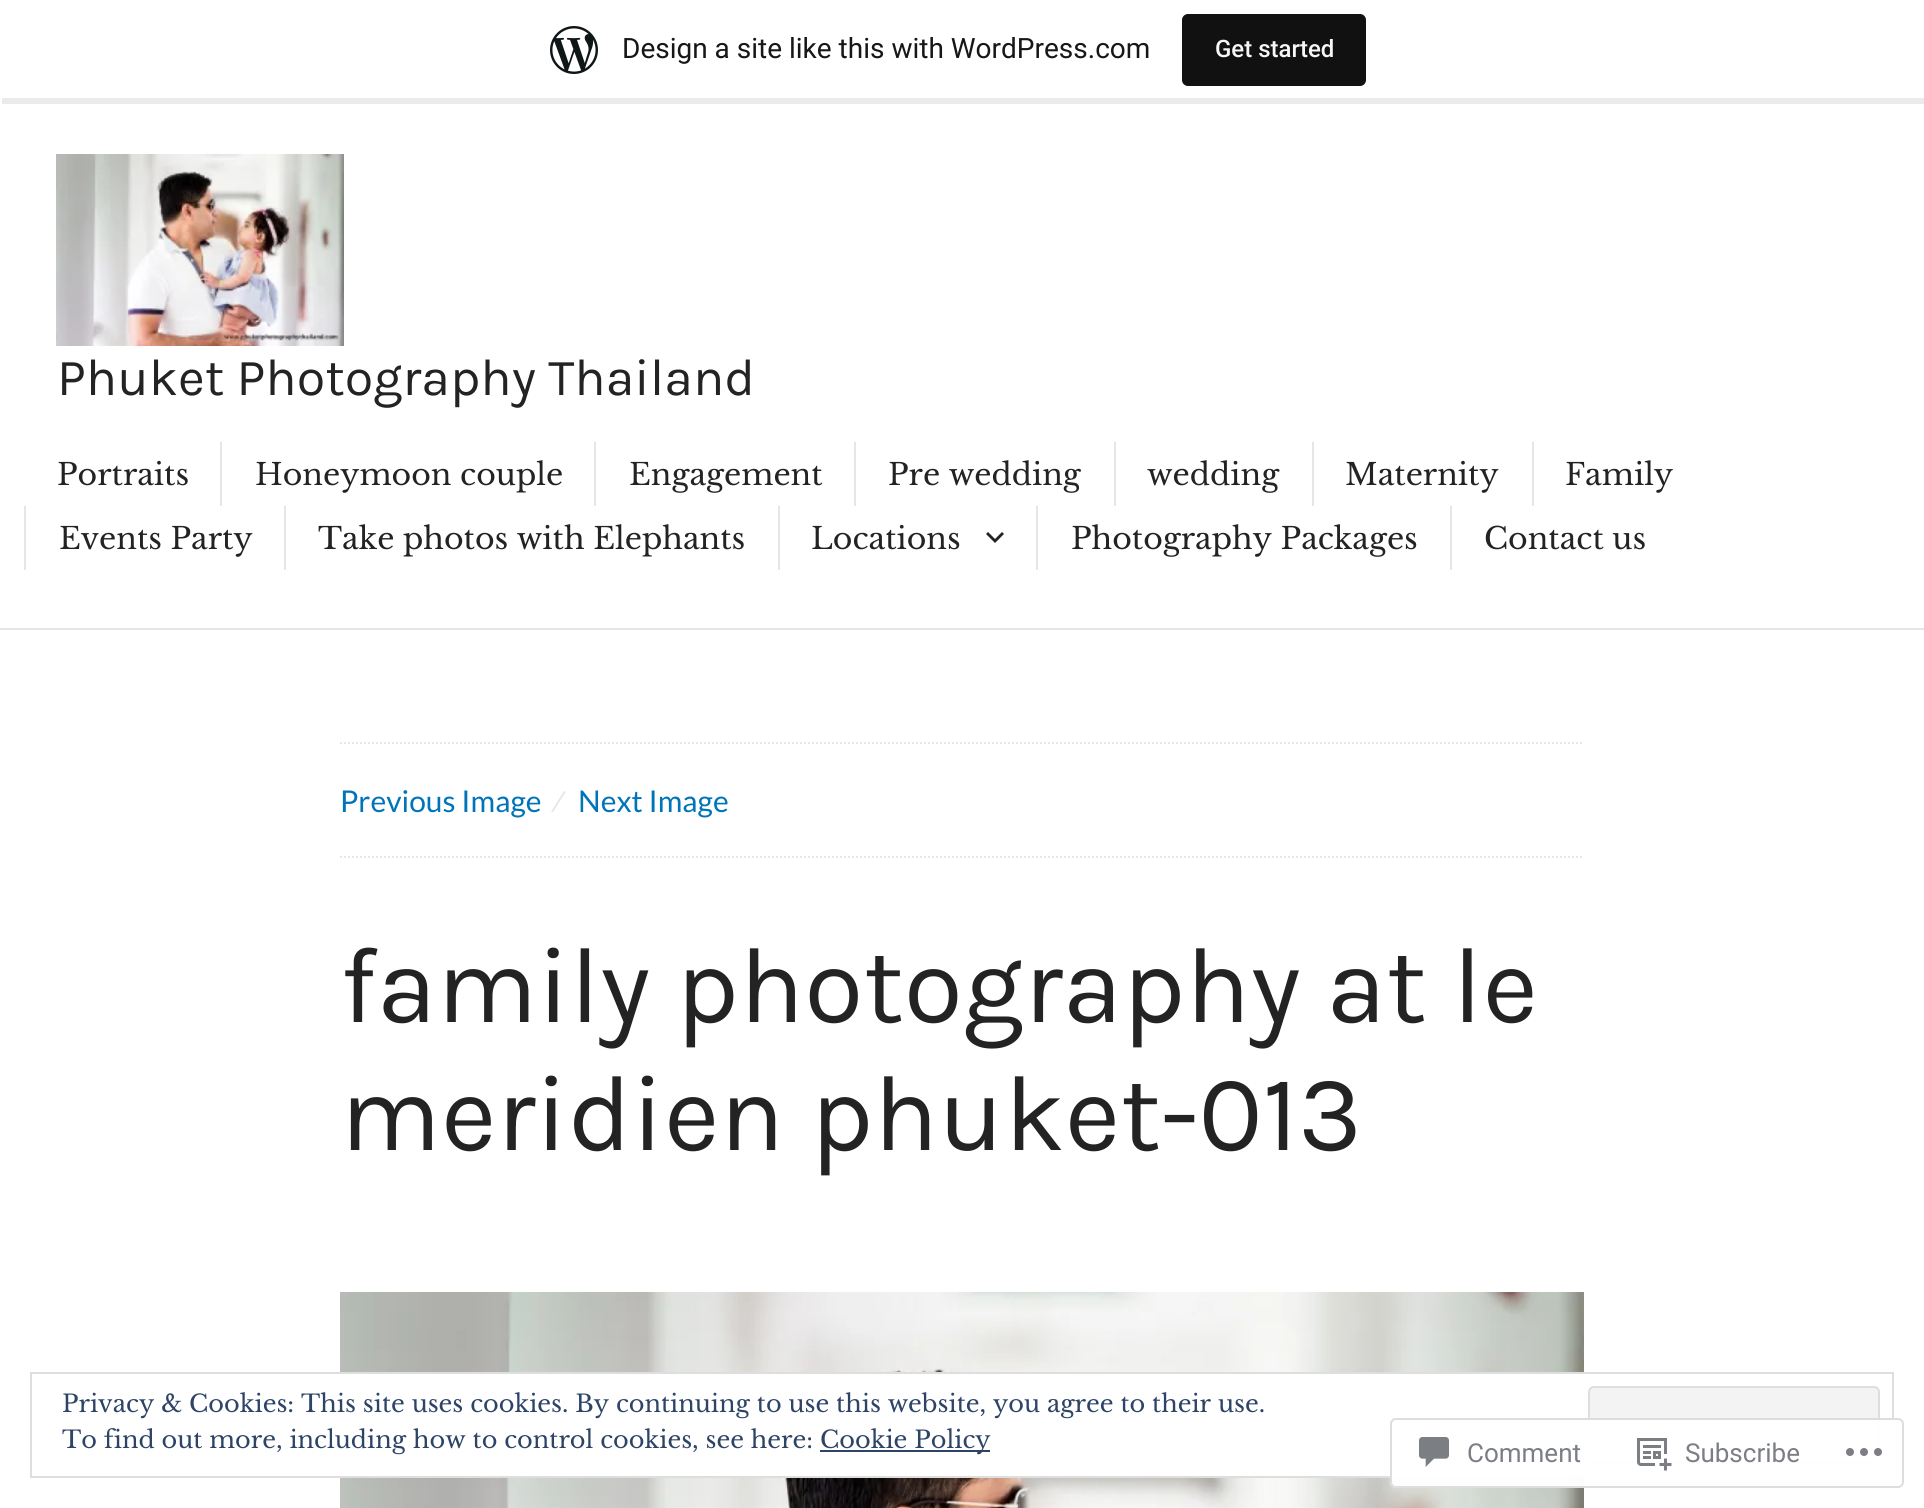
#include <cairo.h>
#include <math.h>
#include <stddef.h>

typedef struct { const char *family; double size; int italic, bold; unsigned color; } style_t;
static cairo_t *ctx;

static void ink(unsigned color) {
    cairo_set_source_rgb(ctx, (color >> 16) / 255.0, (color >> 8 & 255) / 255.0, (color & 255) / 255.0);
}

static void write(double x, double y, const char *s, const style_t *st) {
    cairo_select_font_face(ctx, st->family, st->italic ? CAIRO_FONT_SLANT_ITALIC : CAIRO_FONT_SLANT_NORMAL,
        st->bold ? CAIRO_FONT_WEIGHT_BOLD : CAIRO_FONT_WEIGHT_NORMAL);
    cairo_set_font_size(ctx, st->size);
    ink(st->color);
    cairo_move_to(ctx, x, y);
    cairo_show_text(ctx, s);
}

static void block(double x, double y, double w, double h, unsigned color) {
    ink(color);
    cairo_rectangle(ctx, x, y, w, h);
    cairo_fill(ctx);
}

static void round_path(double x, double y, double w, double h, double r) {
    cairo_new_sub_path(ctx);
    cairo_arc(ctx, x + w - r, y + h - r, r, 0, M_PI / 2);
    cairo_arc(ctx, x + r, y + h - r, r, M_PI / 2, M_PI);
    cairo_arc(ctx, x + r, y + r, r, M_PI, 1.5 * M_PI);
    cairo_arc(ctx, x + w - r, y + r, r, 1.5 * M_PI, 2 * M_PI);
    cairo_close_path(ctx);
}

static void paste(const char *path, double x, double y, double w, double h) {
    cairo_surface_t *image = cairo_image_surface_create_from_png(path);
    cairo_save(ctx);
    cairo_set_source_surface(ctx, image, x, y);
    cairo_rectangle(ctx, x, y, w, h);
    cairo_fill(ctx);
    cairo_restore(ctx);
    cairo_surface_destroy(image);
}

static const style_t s1 = {"Roboto", 28, 0, 0, 0x171717};
static const style_t s2 = {"Roboto Medium", 24, 0, 0, 0xf6f7f7};
static const style_t s3 = {"Karla", 52, 0, 0, 0x232323};
static const style_t s4 = {"Libre Baskerville", 30, 0, 0, 0x232323};
static const style_t s5 = {"Lato", 30, 0, 0, 0x0074b8};
static const style_t s6 = {"Liberation Sans", 30, 0, 0, 0xe6e6e6};
static const style_t s7 = {"Karla", 108, 0, 0, 0x232323};
static const style_t s8 = {"Libre Baskerville", 24, 0, 0, 0x2e4467};
static const style_t s9 = {"Roboto", 26, 0, 0, 0x7b7f85};

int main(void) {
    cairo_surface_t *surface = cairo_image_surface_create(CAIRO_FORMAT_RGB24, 1924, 1508);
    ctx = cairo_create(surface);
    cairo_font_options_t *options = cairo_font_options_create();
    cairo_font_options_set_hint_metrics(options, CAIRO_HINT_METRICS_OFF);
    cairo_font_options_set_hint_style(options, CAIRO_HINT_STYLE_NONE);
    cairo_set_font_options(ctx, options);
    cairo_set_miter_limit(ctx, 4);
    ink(0xffffff);
    cairo_paint(ctx);
    cairo_set_source_rgba(ctx, 0, 0, 0, 0.08);
    cairo_new_path(ctx);
    cairo_move_to(ctx, 2, 98);
    cairo_line_to(ctx, 2, 104);
    cairo_line_to(ctx, 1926, 104);
    cairo_line_to(ctx, 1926, 6);
    cairo_line_to(ctx, 1924, 6);
    cairo_line_to(ctx, 1924, 98);
    cairo_close_path(ctx);
    cairo_fill(ctx);
    paste("pic1.png", 550, 26, 48, 48);
    write(622, 58, "Design a site like this with WordPress.com", &s1);
    ink(0x111111);
    round_path(1182, 14, 184, 72, 6);
    cairo_fill(ctx);
    write(1215, 57, "Get started", &s2);
    block(0, 628, 1924, 2, 0xe6e6e6);
    paste("pic2.png", 56, 154, 288, 192);
    write(57, 395, "Phuket Photography Thailand", &s3);
    write(57, 485, "Portraits", &s4);
    block(220, 442, 2, 64, 0xe6e6e6);
    write(255, 485, "Honeymoon couple", &s4);
    block(594, 442, 2, 64, 0xe6e6e6);
    write(629, 485, "Engagement", &s4);
    block(854, 442, 2, 64, 0xe6e6e6);
    write(888, 485, "Pre wedding", &s4);
    block(1114, 442, 2, 64, 0xe6e6e6);
    write(1147, 485, "wedding", &s4);
    block(1312, 442, 2, 64, 0xe6e6e6);
    write(1345, 485, "Maternity", &s4);
    block(1532, 442, 2, 64, 0xe6e6e6);
    write(1565, 485, "Family", &s4);
    block(24, 506, 2, 64, 0xe6e6e6);
    write(59, 549, "Events Party", &s4);
    block(284, 506, 2, 64, 0xe6e6e6);
    write(318, 549, "Take photos with Elephants", &s4);
    block(778, 506, 2, 64, 0xe6e6e6);
    write(811, 549, "Locations", &s4);
    cairo_new_path(ctx);
    cairo_move_to(ctx, 1002, 532);
    cairo_line_to(ctx, 1004, 534);
    cairo_line_to(ctx, 995, 543);
    cairo_line_to(ctx, 986, 534);
    cairo_line_to(ctx, 988, 532);
    cairo_line_to(ctx, 995, 539);
    cairo_close_path(ctx);
    cairo_fill(ctx);
    block(1036, 506, 2, 64, 0xe6e6e6);
    write(1071, 549, "Photography Packages", &s4);
    block(1450, 506, 2, 64, 0xe6e6e6);
    write(1484, 549, "Contact us", &s4);
    cairo_new_path(ctx);
    cairo_move_to(ctx, 340, 743);
    cairo_line_to(ctx, 1584, 743);
    ink(0xe6e6e6);
    cairo_set_dash(ctx, (double[]){2, 2}, 2, 0);
    cairo_stroke(ctx);
    cairo_new_path(ctx);
    cairo_move_to(ctx, 340, 857);
    cairo_line_to(ctx, 1584, 857);
    cairo_stroke(ctx);
    write(340, 812, "Previous Image", &s5);
    write(557, 812, "∕", &s6);
    write(578, 812, "Next Image", &s5);
    write(340, 1022, "family photography at le", &s7);
    write(340, 1150, "meridien phuket-013", &s7);
    paste("pic3.png", 340, 1292, 1244, 216);
    block(340, 1374, 1244, 102, 0xffffff);
    cairo_rectangle(ctx, 31, 1373, 1862, 104);
    ink(0xdedede);
    cairo_set_dash(ctx, NULL, 0, 0);
    cairo_stroke(ctx);
    write(62, 1412, "Privacy & Cookies: This site uses cookies. By continuing to use this website, you agree to their use.", &s8);
    ink(0xf3f3f3);
    round_path(1589, 1387, 290, 76, 5);
    cairo_fill_preserve(ctx);
    ink(0xdedede);
    cairo_stroke(ctx);
    write(62, 1448, "To find out more, including how to control cookies, see here:", &s8);
    block(820, 1450, 170, 2, 0x2e4467);
    write(820, 1448, "Cookie Policy", &s8);
    cairo_set_source_rgba(ctx, 1, 1, 1, 0.98);
    round_path(1390, 1418, 514, 70, 6);
    cairo_fill(ctx);
    round_path(1391, 1419, 512, 68, 5);
    cairo_set_source_rgba(ctx, 0.863, 0.863, 0.871, 0.98);
    cairo_stroke(ctx);
    paste("pic4.png", 1419, 1437, 30, 30);
    write(1467, 1462, "Comment", &s9);
    paste("pic5.png", 1637, 1438, 35, 33);
    write(1685, 1462, "Subscribe", &s9);
    paste("pic6.png", 1846, 1448, 36, 8);
    cairo_surface_write_to_png(surface, "screenshot.png");
    cairo_font_options_destroy(options);
    cairo_destroy(ctx);
    cairo_surface_destroy(surface);
    return 0;
}
